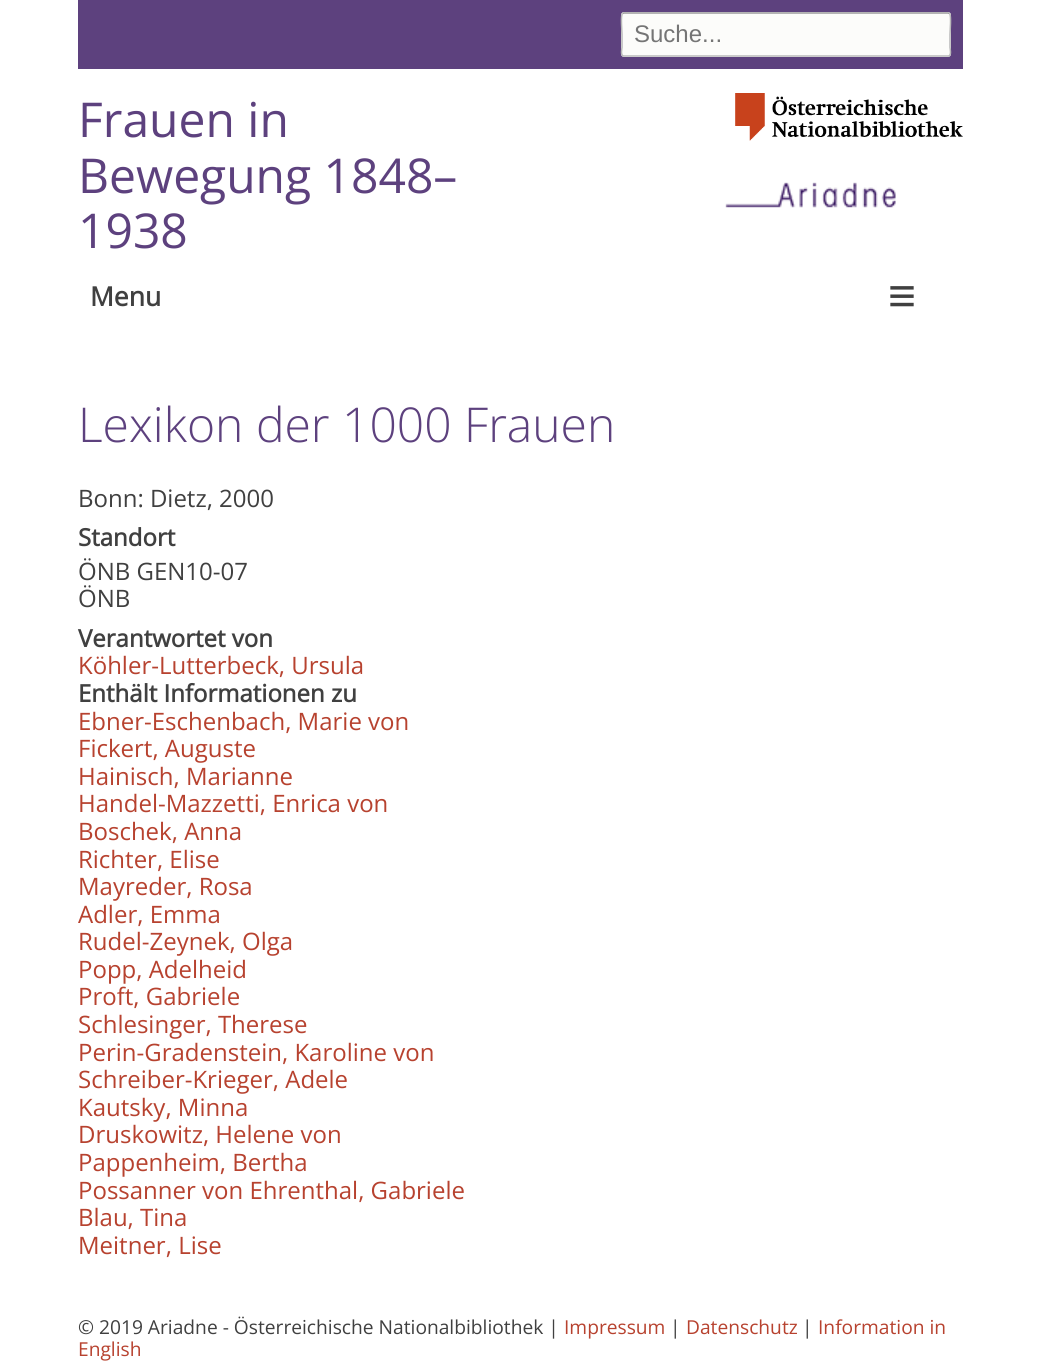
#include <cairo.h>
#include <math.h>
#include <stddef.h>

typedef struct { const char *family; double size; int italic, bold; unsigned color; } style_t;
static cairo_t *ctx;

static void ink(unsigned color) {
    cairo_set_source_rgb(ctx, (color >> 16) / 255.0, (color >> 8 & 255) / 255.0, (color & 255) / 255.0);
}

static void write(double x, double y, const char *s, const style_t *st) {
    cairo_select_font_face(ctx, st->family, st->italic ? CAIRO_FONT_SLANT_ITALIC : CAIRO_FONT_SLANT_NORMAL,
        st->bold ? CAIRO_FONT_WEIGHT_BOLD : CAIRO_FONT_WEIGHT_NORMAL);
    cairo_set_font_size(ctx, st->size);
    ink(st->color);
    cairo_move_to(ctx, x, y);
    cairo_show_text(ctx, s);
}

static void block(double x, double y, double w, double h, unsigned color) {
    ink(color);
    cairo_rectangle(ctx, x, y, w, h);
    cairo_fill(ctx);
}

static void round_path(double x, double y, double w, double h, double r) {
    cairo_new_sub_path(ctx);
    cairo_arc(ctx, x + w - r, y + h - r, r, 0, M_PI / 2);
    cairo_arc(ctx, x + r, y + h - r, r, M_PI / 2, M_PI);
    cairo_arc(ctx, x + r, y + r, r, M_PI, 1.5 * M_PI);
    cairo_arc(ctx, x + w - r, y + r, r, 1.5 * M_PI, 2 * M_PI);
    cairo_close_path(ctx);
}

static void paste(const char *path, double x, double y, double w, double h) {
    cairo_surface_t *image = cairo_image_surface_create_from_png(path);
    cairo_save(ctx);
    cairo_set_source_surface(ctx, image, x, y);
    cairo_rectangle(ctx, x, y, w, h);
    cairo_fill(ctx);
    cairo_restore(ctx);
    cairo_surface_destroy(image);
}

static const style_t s1 = {"Liberation Sans", 24, 0, 0, 0x757575};
static const style_t s2 = {"Open Sans", 48, 0, 0, 0x5d417e};
static const style_t s3 = {"Open Sans", 26.5, 0, 1, 0x404040};
static const style_t s4 = {"Liberation Sans", 48, 0, 1, 0x404040};
static const style_t s5 = {"Open Sans Light", 48, 0, 0, 0x5d417e};
static const style_t s6 = {"Open Sans", 24, 0, 0, 0x404040};
static const style_t s7 = {"Open Sans", 24, 0, 1, 0x404040};
static const style_t s8 = {"Open Sans", 24, 0, 0, 0xb7422f};
static const style_t s9 = {"Open Sans", 19.2, 0, 0, 0x404040};
static const style_t s10 = {"Open Sans", 19.2, 0, 0, 0xb7422f};

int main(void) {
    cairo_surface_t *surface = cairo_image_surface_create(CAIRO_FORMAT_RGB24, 1041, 1372);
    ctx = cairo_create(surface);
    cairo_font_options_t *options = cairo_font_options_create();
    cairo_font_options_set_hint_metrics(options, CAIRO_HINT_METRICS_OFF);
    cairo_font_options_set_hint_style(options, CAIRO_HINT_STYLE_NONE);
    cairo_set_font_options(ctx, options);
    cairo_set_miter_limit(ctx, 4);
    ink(0xffffff);
    cairo_paint(ctx);
    block(78, 0, 885, 69, 0x5d417e);
    ink(0xfcfcfa);
    round_path(621, 12, 330, 45, 3);
    cairo_fill(ctx);
    cairo_new_path(ctx);
    cairo_move_to(ctx, 622.5, 13.5);
    cairo_line_to(ctx, 624, 13);
    cairo_line_to(ctx, 948, 13);
    cairo_line_to(ctx, 949.5, 13.5);
    ink(0x999999);
    cairo_set_line_width(ctx, 1.5);
    cairo_stroke(ctx);
    cairo_new_path(ctx);
    cairo_move_to(ctx, 949.5, 13.5);
    cairo_curve_to(ctx, 951.5, 15, 950, 31.5, 950, 34.5);
    cairo_line_to(ctx, 950, 47.5);
    cairo_curve_to(ctx, 950, 48.5, 952, 56, 948, 56);
    cairo_line_to(ctx, 624, 56);
    cairo_curve_to(ctx, 620, 56, 622, 48.5, 622, 47.5);
    cairo_line_to(ctx, 622, 34.5);
    cairo_curve_to(ctx, 622, 31.5, 620.5, 15, 622.5, 13.5);
    ink(0xb8b8b8);
    cairo_stroke(ctx);
    write(634, 42, "Suche...", &s1);
    write(78, 137, "Frauen in", &s2);
    write(78, 193, "Bewegung 1848–", &s2);
    write(78, 248, "1938", &s2);
    paste("pic1.png", 735, 93, 228, 48);
    paste("pic2.png", 725, 182, 171, 26);
    write(90, 306, "Menu", &s3);
    write(888, 312, "≡", &s4);
    write(78, 442, "Lexikon der 1000 Frauen", &s5);
    write(78, 507, "Bonn: Dietz, 2000", &s6);
    write(78, 546, "Standort", &s7);
    write(78, 580, "ÖNB GEN10-07", &s6);
    write(78, 607, "ÖNB", &s6);
    write(78, 647, "Verantwortet von", &s7);
    write(78, 674, "Köhler-Lutterbeck, Ursula", &s8);
    write(78, 702, "Enthält Informationen zu", &s7);
    write(78, 730, "Ebner-Eschenbach, Marie von", &s8);
    write(78, 757, "Fickert, Auguste", &s8);
    write(78, 785, "Hainisch, Marianne", &s8);
    write(78, 812, "Handel-Mazzetti, Enrica von", &s8);
    write(78, 840, "Boschek, Anna", &s8);
    write(78, 868, "Richter, Elise", &s8);
    write(78, 895, "Mayreder, Rosa", &s8);
    write(78, 923, "Adler, Emma", &s8);
    write(78, 950, "Rudel-Zeynek, Olga", &s8);
    write(78, 978, "Popp, Adelheid", &s8);
    write(78, 1005, "Proft, Gabriele", &s8);
    write(78, 1033, "Schlesinger, Therese", &s8);
    write(78, 1061, "Perin-Gradenstein, Karoline von", &s8);
    write(78, 1088, "Schreiber-Krieger, Adele", &s8);
    write(78, 1116, "Kautsky, Minna", &s8);
    write(78, 1143, "Druskowitz, Helene von", &s8);
    write(78, 1171, "Pappenheim, Bertha", &s8);
    write(78, 1199, "Possanner von Ehrenthal, Gabriele", &s8);
    write(78, 1226, "Blau, Tina", &s8);
    write(78, 1254, "Meitner, Lise", &s8);
    write(78, 1334, "© 2019 Ariadne - Österreichische Nationalbibliothek |", &s9);
    write(564, 1334, "Impressum", &s10);
    write(670, 1334, "|", &s9);
    write(686, 1334, "Datenschutz", &s10);
    write(802, 1334, "|", &s9);
    write(818, 1334, "Information in", &s10);
    write(78, 1356, "English", &s10);
    cairo_surface_write_to_png(surface, "screenshot.png");
    cairo_font_options_destroy(options);
    cairo_destroy(ctx);
    cairo_surface_destroy(surface);
    return 0;
}
